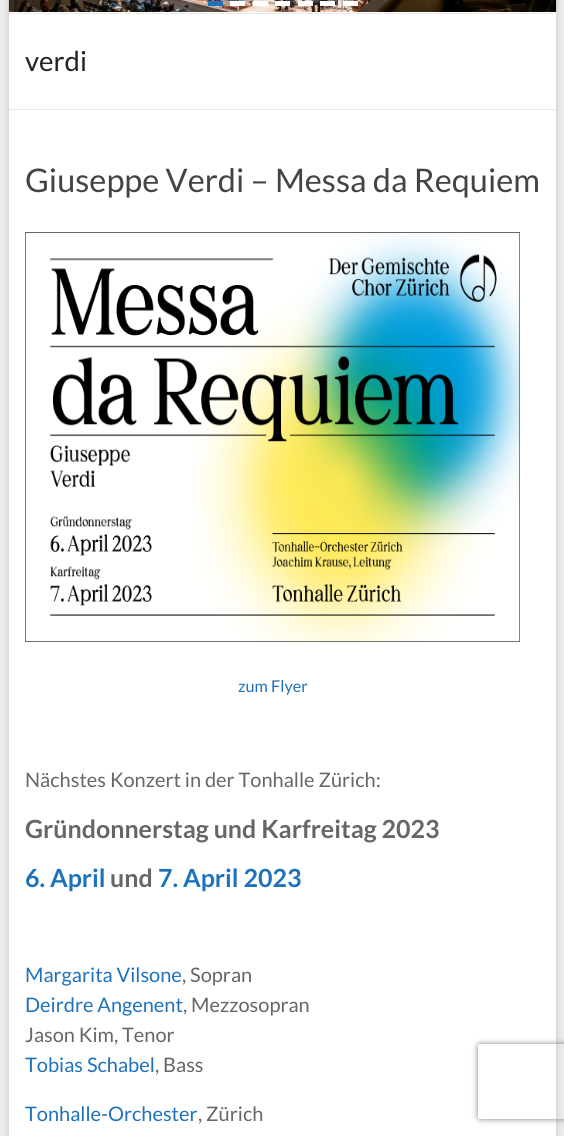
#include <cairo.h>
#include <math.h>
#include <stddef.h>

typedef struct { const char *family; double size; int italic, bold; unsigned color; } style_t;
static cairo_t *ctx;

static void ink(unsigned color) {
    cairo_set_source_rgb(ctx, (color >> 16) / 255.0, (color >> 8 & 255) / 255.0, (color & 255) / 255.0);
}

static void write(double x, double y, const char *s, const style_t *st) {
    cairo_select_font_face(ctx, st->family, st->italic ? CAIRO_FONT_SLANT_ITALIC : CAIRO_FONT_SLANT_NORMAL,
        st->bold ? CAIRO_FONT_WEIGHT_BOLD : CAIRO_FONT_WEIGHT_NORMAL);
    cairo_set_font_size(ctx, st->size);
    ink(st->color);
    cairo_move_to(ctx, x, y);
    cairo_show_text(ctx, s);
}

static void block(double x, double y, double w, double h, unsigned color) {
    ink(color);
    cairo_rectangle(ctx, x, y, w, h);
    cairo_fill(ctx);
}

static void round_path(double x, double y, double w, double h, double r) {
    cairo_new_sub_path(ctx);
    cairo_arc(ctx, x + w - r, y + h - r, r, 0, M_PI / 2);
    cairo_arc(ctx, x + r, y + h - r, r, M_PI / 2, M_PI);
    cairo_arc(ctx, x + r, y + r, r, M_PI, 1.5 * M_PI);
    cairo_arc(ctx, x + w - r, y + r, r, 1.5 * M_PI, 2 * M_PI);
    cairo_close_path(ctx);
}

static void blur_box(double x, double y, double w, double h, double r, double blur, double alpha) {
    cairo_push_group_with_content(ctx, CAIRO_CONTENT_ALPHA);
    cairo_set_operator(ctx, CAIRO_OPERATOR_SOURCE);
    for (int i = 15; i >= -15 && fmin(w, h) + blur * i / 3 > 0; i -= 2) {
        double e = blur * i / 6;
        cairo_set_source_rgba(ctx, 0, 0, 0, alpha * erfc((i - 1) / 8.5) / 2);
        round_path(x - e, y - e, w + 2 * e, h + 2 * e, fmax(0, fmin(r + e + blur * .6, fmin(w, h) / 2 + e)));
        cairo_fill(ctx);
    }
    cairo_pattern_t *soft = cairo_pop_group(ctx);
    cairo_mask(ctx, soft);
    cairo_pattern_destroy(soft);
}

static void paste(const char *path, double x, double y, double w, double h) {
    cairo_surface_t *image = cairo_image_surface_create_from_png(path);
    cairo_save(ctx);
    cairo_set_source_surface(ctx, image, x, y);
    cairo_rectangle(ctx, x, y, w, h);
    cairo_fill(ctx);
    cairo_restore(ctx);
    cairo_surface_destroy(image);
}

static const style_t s1 = {"Lato", 27.5, 0, 0, 0x222222};
static const style_t s2 = {"Lato", 32.5, 0, 0, 0x444444};
static const style_t s3 = {"Lato", 16.25, 0, 0, 0x1e72bd};
static const style_t s4 = {"Lato", 20, 0, 0, 0x666666};
static const style_t s5 = {"Lato", 25, 0, 1, 0x666666};
static const style_t s6 = {"Lato", 25, 0, 1, 0x1e72bd};
static const style_t s7 = {"Lato", 20, 0, 0, 0x1e72bd};

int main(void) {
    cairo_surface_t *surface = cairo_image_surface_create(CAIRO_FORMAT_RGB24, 564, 1136);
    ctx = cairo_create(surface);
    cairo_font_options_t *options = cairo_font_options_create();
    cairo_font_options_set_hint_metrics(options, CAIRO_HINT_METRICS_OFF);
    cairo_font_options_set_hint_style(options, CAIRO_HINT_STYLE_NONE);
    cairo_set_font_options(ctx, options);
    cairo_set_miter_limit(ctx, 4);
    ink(0xededed);
    cairo_paint(ctx);
    ink(0x646464);
    blur_box(9, -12, 547, 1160, 0, 4, 0.3);
    block(9, 12, 547, 1124, 0xffffff);
    block(9, 13, 547, 1, 0xeaeaea);
    paste("pic1.png", 8, 0, 549, 12);
    block(208, 1, 15, 5, 0x1e72bd);
    block(230, 1, 15, 5, 0xffffff);
    block(253, 1, 15, 5, 0xffffff);
    block(275, 1, 15, 5, 0xffffff);
    block(298, 1, 15, 5, 0xffffff);
    block(320, 1, 15, 5, 0xffffff);
    block(343, 1, 15, 5, 0xffffff);
    block(9, 109, 547, 1, 0xeaeaea);
    write(25, 71, "verdi", &s1);
    write(25, 192, "Giuseppe Verdi – Messa da Requiem", &s2);
    paste("pic2.png", 25, 232, 495, 410);
    write(238, 692, "zum Flyer", &s3);
    write(25, 787, "Nächstes Konzert in der Tonhalle Zürich:", &s4);
    write(25, 838, "Gründonnerstag und Karfreitag 2023", &s5);
    write(25, 887, "6. April", &s6);
    write(110, 887, "und", &s5);
    write(158, 887, "7. April 2023", &s6);
    write(25, 982, "Margarita Vilsone", &s7);
    write(182, 982, ", Sopran", &s4);
    write(25, 1012, "Deirdre Angenent", &s7);
    write(183, 1012, ", Mezzosopran", &s4);
    write(25, 1042, "Jason Kim, Tenor", &s4);
    write(25, 1072, "Tobias Schabel", &s7);
    write(155, 1072, ", Bass", &s4);
    write(25, 1121, "Tonhalle-Orchester", &s7);
    write(198, 1121, ", Zürich", &s4);
    cairo_save(ctx);
    cairo_set_fill_rule(ctx, CAIRO_FILL_RULE_EVEN_ODD);
    cairo_new_path(ctx);
    cairo_move_to(ctx, 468, 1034);
    cairo_line_to(ctx, 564, 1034);
    cairo_line_to(ctx, 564, 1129);
    cairo_line_to(ctx, 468, 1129);
    cairo_close_path(ctx);
    cairo_move_to(ctx, 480.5, 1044);
    cairo_line_to(ctx, 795.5, 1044);
    cairo_curve_to(ctx, 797, 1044, 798, 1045, 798, 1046.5);
    cairo_line_to(ctx, 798, 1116.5);
    cairo_curve_to(ctx, 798, 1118, 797, 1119, 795.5, 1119);
    cairo_line_to(ctx, 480.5, 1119);
    cairo_curve_to(ctx, 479, 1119, 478, 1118, 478, 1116.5);
    cairo_line_to(ctx, 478, 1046.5);
    cairo_curve_to(ctx, 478, 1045, 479, 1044, 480.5, 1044);
    cairo_close_path(ctx);
    cairo_clip(ctx);
    ink(0x808080);
    blur_box(478, 1044, 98, 75, 2.5, 3, 1);
    cairo_restore(ctx);
    cairo_surface_write_to_png(surface, "screenshot.png");
    cairo_font_options_destroy(options);
    cairo_destroy(ctx);
    cairo_surface_destroy(surface);
    return 0;
}
